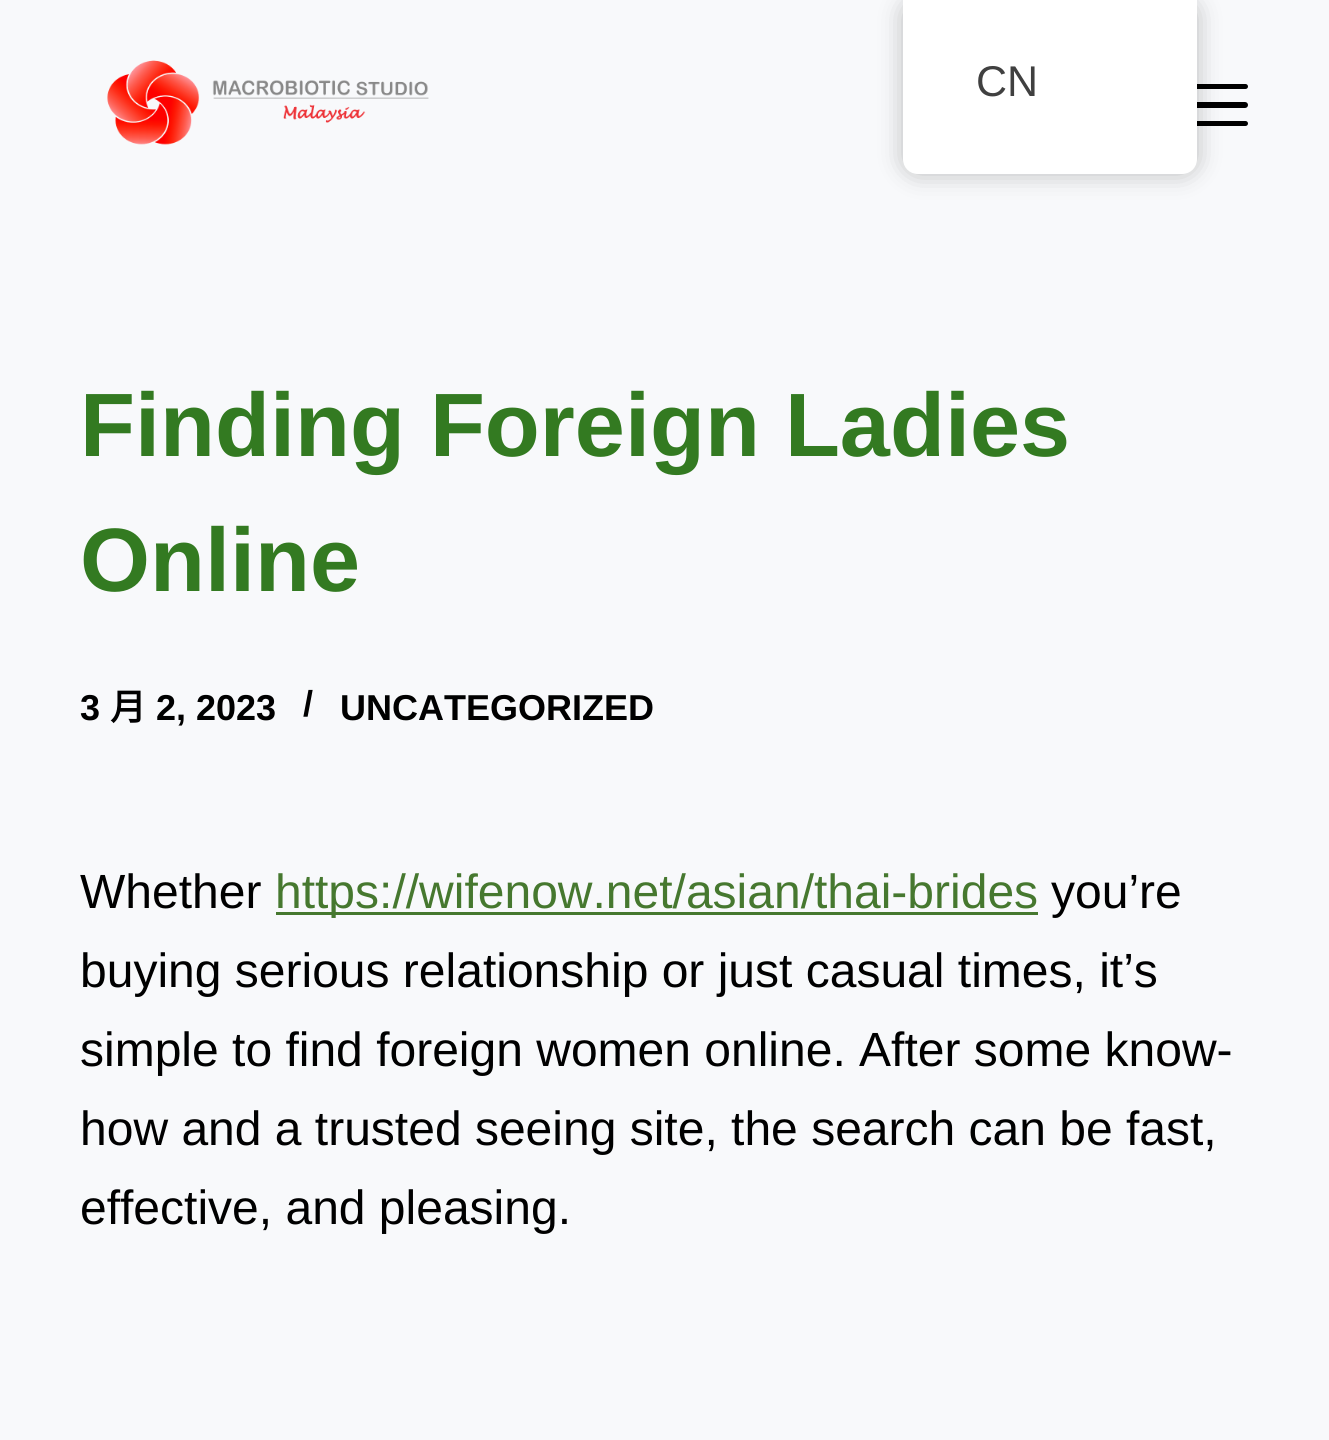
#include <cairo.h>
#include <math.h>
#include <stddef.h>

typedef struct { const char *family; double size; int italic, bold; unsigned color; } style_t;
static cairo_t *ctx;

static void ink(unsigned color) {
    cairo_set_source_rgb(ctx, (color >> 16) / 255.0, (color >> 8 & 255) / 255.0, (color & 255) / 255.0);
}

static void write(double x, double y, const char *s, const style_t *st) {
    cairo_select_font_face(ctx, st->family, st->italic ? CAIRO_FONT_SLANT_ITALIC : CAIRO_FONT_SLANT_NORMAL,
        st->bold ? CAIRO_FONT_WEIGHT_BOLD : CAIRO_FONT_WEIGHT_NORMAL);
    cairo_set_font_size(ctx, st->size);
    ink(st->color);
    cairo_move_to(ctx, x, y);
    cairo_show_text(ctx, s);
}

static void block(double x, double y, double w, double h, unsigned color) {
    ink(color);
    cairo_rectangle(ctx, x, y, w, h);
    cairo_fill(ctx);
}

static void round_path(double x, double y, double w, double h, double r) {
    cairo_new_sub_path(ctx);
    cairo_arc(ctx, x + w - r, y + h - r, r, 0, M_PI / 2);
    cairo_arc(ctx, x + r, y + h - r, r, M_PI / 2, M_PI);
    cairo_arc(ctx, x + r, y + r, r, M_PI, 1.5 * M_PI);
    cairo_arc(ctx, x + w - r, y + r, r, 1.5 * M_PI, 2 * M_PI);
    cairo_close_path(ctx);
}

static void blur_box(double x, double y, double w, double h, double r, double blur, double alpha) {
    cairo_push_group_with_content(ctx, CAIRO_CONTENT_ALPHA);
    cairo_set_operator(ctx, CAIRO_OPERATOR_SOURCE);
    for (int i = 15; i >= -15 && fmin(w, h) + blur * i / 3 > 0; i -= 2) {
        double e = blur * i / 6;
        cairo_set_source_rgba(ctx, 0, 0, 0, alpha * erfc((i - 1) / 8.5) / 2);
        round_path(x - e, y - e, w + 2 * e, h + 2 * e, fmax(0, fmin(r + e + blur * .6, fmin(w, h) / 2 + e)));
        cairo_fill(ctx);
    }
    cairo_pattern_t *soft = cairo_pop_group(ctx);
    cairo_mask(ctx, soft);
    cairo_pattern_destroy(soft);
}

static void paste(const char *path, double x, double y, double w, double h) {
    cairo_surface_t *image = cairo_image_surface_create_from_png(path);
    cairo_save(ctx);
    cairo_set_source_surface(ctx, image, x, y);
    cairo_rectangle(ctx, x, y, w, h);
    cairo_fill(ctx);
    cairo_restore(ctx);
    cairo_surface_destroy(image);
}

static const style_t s1 = {"Liberation Sans", 43, 0, 0, 0x404040};
static const style_t s2 = {"Liberation Sans", 90, 0, 1, 0x337a21};
static const style_t s3 = {"Liberation Sans", 36, 0, 1, 0x000000};
static const style_t s4 = {"Noto Sans CJK SC", 36, 0, 1, 0x000000};
static const style_t s5 = {"Liberation Sans", 48, 0, 0, 0x000000};
static const style_t s6 = {"Liberation Sans", 48, 0, 0, 0x46782f};

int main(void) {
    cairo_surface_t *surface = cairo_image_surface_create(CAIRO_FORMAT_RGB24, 1329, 1440);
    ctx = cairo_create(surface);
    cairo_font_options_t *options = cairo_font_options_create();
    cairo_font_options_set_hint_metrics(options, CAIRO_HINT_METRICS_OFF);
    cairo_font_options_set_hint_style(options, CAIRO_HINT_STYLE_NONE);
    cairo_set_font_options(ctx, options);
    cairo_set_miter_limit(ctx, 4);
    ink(0xf8f9fb);
    cairo_paint(ctx);
    ink(0x000000);
    round_path(1194, 84, 54, 5, 2.5);
    cairo_fill(ctx);
    round_path(1194, 102, 54, 6, 3);
    cairo_fill(ctx);
    round_path(1194, 121, 54, 5, 2.5);
    cairo_fill(ctx);
    ink(0x000000);
    blur_box(903, 0, 294, 174, 15, 12, 0.25);
    ink(0xffffff);
    cairo_new_path(ctx);
    cairo_move_to(ctx, 903, 0);
    cairo_line_to(ctx, 1197, 0);
    cairo_line_to(ctx, 1197, 159);
    cairo_curve_to(ctx, 1197, 167.5, 1190.5, 174, 1182, 174);
    cairo_line_to(ctx, 918, 174);
    cairo_curve_to(ctx, 909.5, 174, 903, 167.5, 903, 159);
    cairo_close_path(ctx);
    cairo_fill(ctx);
    write(976, 96, "CN", &s1);
    paste("pic1.png", 107, 60, 322, 85);
    write(80, 456, "Finding Foreign Ladies", &s2);
    write(80, 591, "Online", &s2);
    write(80, 720, "3", &s3);
    write(110, 720, "月", &s4);
    write(156, 720, "2, 2023", &s3);
    write(303, 716, "/", &s3);
    write(340, 720, "UNCATEGORIZED", &s3);
    write(80, 908, "Whether", &s5);
    block(276, 912, 762, 3, 0x46782f);
    write(275, 908, "https://wifenow.net/asian/thai-brides", &s6);
    write(1051, 908, "you’re", &s5);
    write(80, 987, "buying serious relationship or just casual times, it’s", &s5);
    write(80, 1066, "simple to find foreign women online. After some know-", &s5);
    write(80, 1145, "how and a trusted seeing site, the search can be fast,", &s5);
    write(80, 1224, "effective, and pleasing.", &s5);
    cairo_surface_write_to_png(surface, "screenshot.png");
    cairo_font_options_destroy(options);
    cairo_destroy(ctx);
    cairo_surface_destroy(surface);
    return 0;
}
